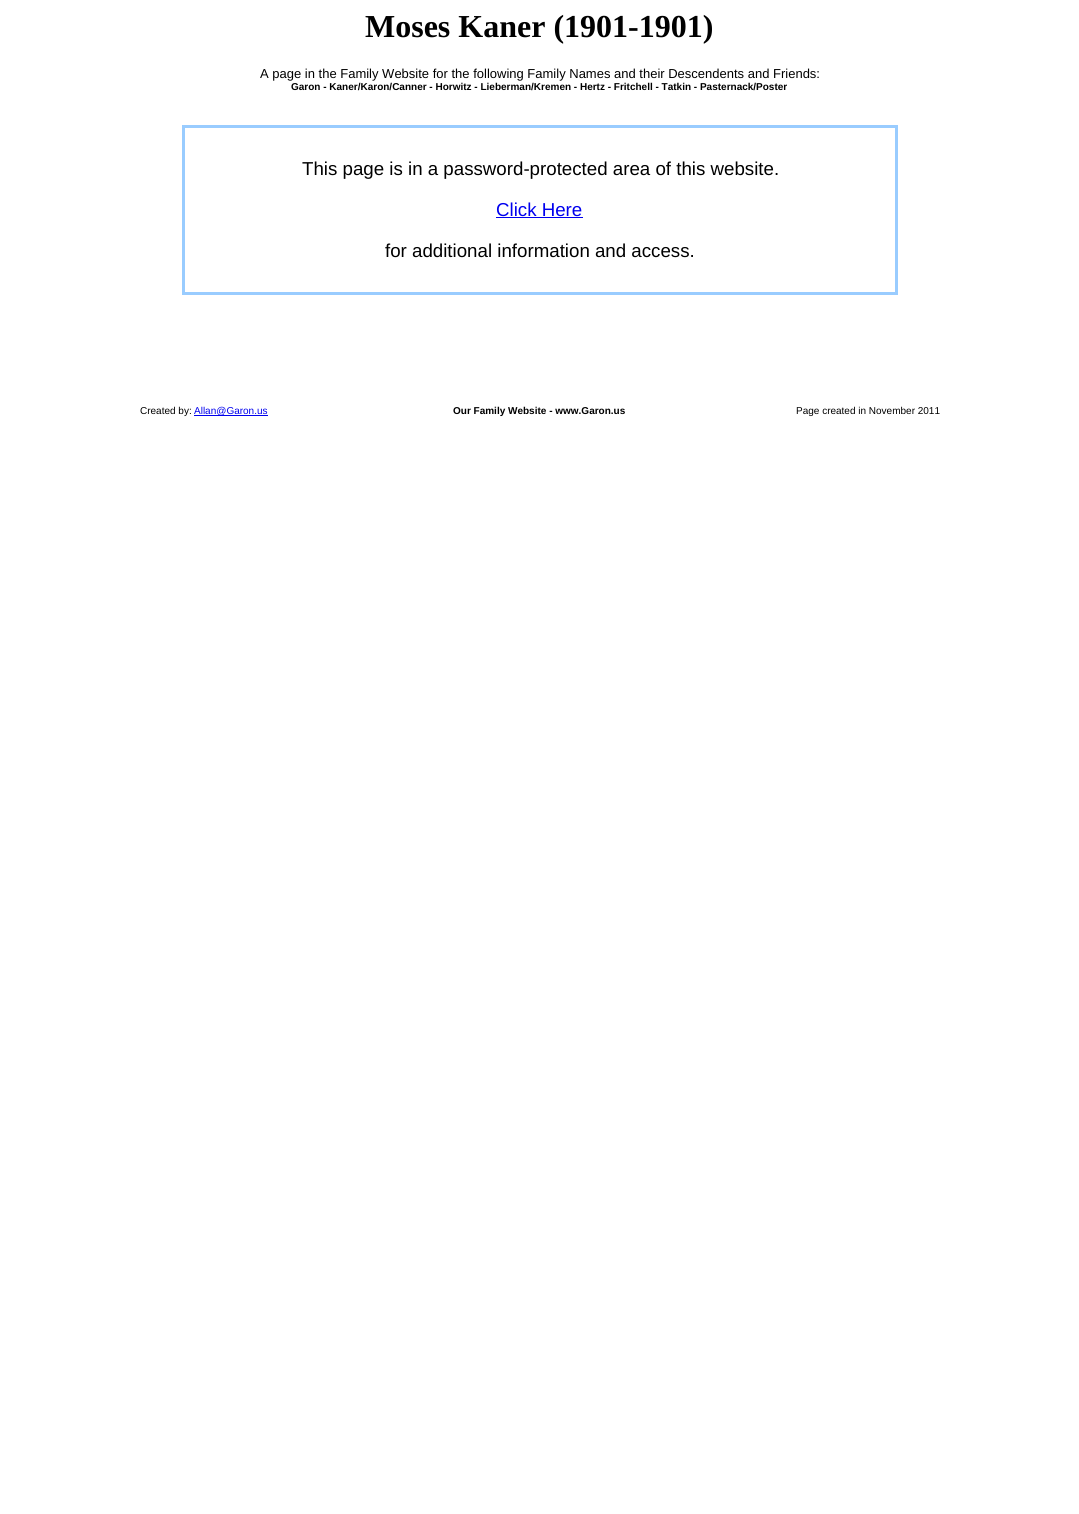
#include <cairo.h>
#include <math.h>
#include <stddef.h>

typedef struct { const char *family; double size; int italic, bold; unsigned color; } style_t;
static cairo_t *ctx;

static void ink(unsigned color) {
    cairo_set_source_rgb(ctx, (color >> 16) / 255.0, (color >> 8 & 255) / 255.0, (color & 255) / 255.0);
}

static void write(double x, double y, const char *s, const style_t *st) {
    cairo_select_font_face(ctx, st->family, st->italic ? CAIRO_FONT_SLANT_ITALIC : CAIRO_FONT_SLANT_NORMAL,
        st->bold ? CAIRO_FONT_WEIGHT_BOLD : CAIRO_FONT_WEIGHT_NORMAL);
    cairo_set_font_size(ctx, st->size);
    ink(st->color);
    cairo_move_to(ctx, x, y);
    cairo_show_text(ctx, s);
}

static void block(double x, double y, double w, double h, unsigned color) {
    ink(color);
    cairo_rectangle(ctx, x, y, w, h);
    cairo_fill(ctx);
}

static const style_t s1 = {"Liberation Serif", 32, 0, 1, 0x000000};
static const style_t s2 = {"Liberation Sans", 13, 0, 0, 0x000000};
static const style_t s3 = {"Liberation Sans", 10, 0, 1, 0x000000};
static const style_t s4 = {"Liberation Sans", 18.7, 0, 0, 0x000000};
static const style_t s5 = {"Liberation Sans", 18.7, 0, 0, 0x0000ee};
static const style_t s6 = {"Liberation Sans", 10, 0, 0, 0x000000};
static const style_t s7 = {"Liberation Sans", 10, 0, 0, 0x0000ee};

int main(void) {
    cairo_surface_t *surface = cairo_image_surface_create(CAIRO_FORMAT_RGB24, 1079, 1514);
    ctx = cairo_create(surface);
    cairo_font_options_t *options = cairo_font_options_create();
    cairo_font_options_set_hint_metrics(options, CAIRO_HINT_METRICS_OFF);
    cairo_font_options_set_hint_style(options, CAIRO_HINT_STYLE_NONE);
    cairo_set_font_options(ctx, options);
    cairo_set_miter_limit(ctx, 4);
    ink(0xffffff);
    cairo_paint(ctx);
    write(365, 37, "Moses Kaner (1901-1901)", &s1);
    write(260, 78, "A page in the Family Website for the following Family Names and their Descendents and Friends:", &s2);
    write(291, 90, "Garon - Kaner/Karon/Canner - Horwitz - Lieberman/Kremen - Hertz - Fritchell - Tatkin - Pasternack/Poster", &s3);
    cairo_rectangle(ctx, 183, 126, 714, 168);
    ink(0x99ccff);
    cairo_stroke(ctx);
    cairo_rectangle(ctx, 184.5, 127.5, 711, 165);
    cairo_set_line_width(ctx, 1);
    cairo_stroke(ctx);
    write(302, 175, "This page is in a password-protected area of this website.", &s4);
    write(496, 216, "Click Here", &s5);
    block(496, 217, 87, 1, 0x0000ee);
    write(385, 257, "for additional information and access.", &s4);
    write(140, 414, "Created by:", &s6);
    block(194, 415, 74, 1, 0x0000ee);
    write(194, 414, "Allan@Garon.us", &s7);
    write(453, 414, "Our Family Website - www.Garon.us", &s3);
    write(796, 414, "Page created in November 2011", &s6);
    cairo_surface_write_to_png(surface, "screenshot.png");
    cairo_font_options_destroy(options);
    cairo_destroy(ctx);
    cairo_surface_destroy(surface);
    return 0;
}
